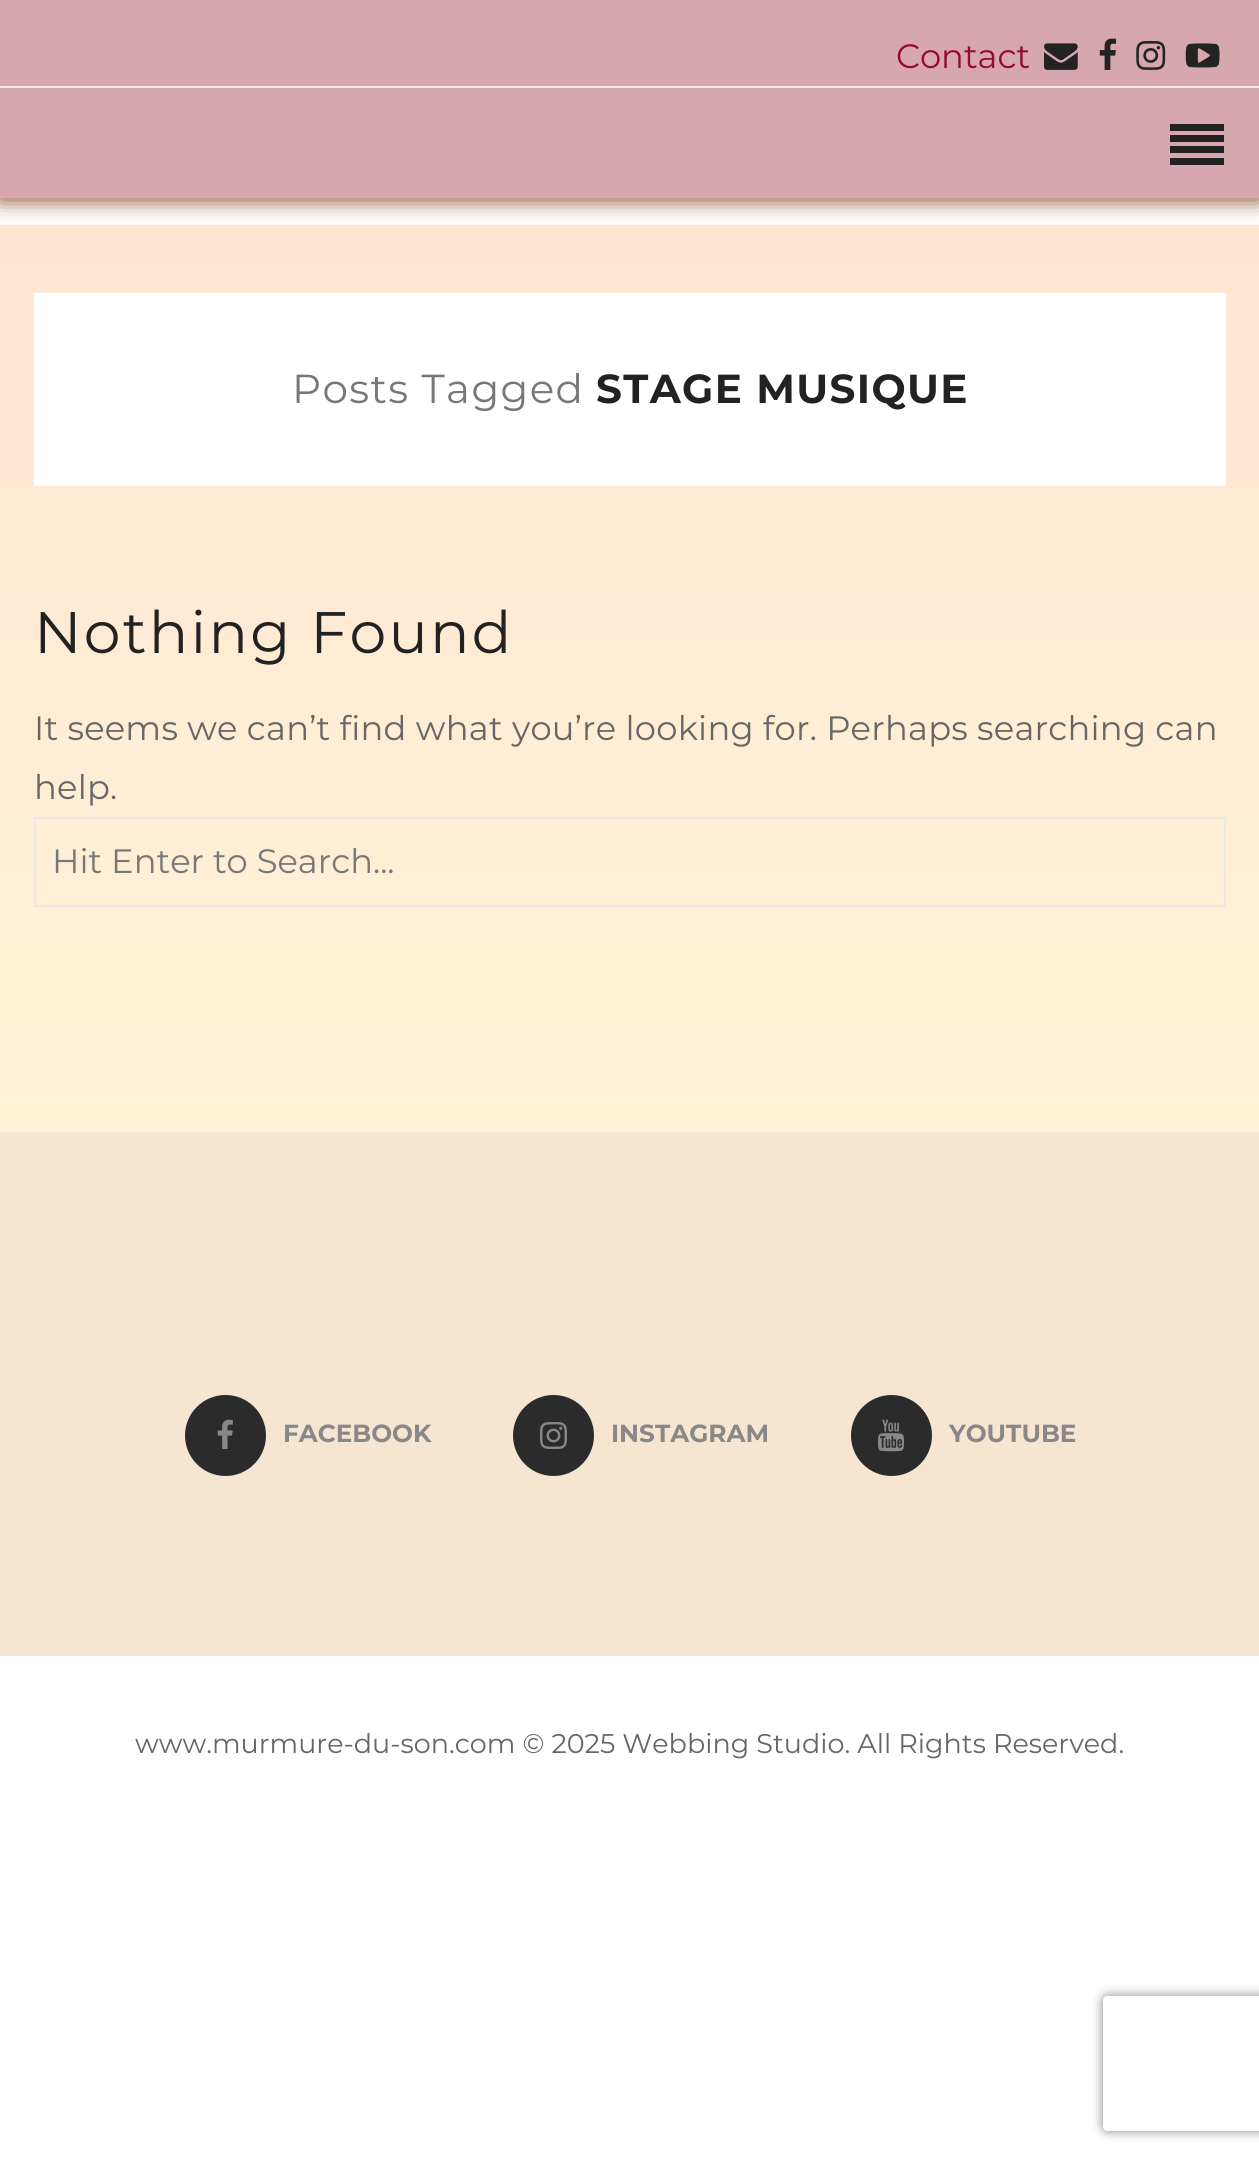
#include <cairo.h>
#include <math.h>
#include <stddef.h>

typedef struct { const char *family; double size; int italic, bold; unsigned color; } style_t;
static cairo_t *ctx;

static void ink(unsigned color) {
    cairo_set_source_rgb(ctx, (color >> 16) / 255.0, (color >> 8 & 255) / 255.0, (color & 255) / 255.0);
}

static void write(double x, double y, const char *s, const style_t *st) {
    cairo_select_font_face(ctx, st->family, st->italic ? CAIRO_FONT_SLANT_ITALIC : CAIRO_FONT_SLANT_NORMAL,
        st->bold ? CAIRO_FONT_WEIGHT_BOLD : CAIRO_FONT_WEIGHT_NORMAL);
    cairo_set_font_size(ctx, st->size);
    ink(st->color);
    cairo_move_to(ctx, x, y);
    cairo_show_text(ctx, s);
}

static void write_spaced(double x, double y, const char *s, double letter, double word) {
    cairo_move_to(ctx, x, y);
    while (*s) {
        char ch[5] = {0};
        int n = 0;
        do ch[n++] = *s++; while ((*s & 0xC0) == 0x80);
        cairo_show_text(ctx, ch);
        cairo_rel_move_to(ctx, letter + word * (*ch == ' '), 0);
    }
}

static void block(double x, double y, double w, double h, unsigned color) {
    ink(color);
    cairo_rectangle(ctx, x, y, w, h);
    cairo_fill(ctx);
}

static void round_path(double x, double y, double w, double h, double r) {
    cairo_new_sub_path(ctx);
    cairo_arc(ctx, x + w - r, y + h - r, r, 0, M_PI / 2);
    cairo_arc(ctx, x + r, y + h - r, r, M_PI / 2, M_PI);
    cairo_arc(ctx, x + r, y + r, r, M_PI, 1.5 * M_PI);
    cairo_arc(ctx, x + w - r, y + r, r, 1.5 * M_PI, 2 * M_PI);
    cairo_close_path(ctx);
}

static void blur_box(double x, double y, double w, double h, double r, double blur, double alpha) {
    cairo_push_group_with_content(ctx, CAIRO_CONTENT_ALPHA);
    cairo_set_operator(ctx, CAIRO_OPERATOR_SOURCE);
    for (int i = 15; i >= -15 && fmin(w, h) + blur * i / 3 > 0; i -= 2) {
        double e = blur * i / 6;
        cairo_set_source_rgba(ctx, 0, 0, 0, alpha * erfc((i - 1) / 8.5) / 2);
        round_path(x - e, y - e, w + 2 * e, h + 2 * e, fmax(0, fmin(r + e + blur * .6, fmin(w, h) / 2 + e)));
        cairo_fill(ctx);
    }
    cairo_pattern_t *soft = cairo_pop_group(ctx);
    cairo_mask(ctx, soft);
    cairo_pattern_destroy(soft);
}

static void paste(const char *path, double x, double y, double w, double h) {
    cairo_surface_t *image = cairo_image_surface_create_from_png(path);
    cairo_save(ctx);
    cairo_set_source_surface(ctx, image, x, y);
    cairo_rectangle(ctx, x, y, w, h);
    cairo_fill(ctx);
    cairo_restore(ctx);
    cairo_surface_destroy(image);
}

static const style_t s1 = {"Montserrat", 33.75, 0, 0, 0x960a2f};
static const style_t s2 = {"Montserrat", 33.75, 0, 0, 0x777777};
static const style_t s3 = {"Montserrat", 24.75, 0, 1, 0x888888};
static const style_t s4 = {"Montserrat", 27, 0, 0, 0x666666};

int main(void) {
    cairo_surface_t *surface = cairo_image_surface_create(CAIRO_FORMAT_RGB24, 1259, 2161);
    ctx = cairo_create(surface);
    cairo_font_options_t *options = cairo_font_options_create();
    cairo_font_options_set_hint_metrics(options, CAIRO_HINT_METRICS_OFF);
    cairo_font_options_set_hint_style(options, CAIRO_HINT_STYLE_NONE);
    cairo_set_font_options(ctx, options);
    cairo_set_miter_limit(ctx, 4);
    cairo_pattern_t *gradient;
    ink(0xffffff);
    cairo_paint(ctx);
    gradient = cairo_pattern_create_linear(630, 225, 630, 1132);
    cairo_pattern_add_color_stop_rgba(gradient, 0, 1, 0.902, 0.827, 1);
    cairo_pattern_add_color_stop_rgba(gradient, 1, 1, 0.949, 0.843, 1);
    cairo_set_source(ctx, gradient);
    cairo_pattern_destroy(gradient);
    cairo_rectangle(ctx, 0, 225, 1259, 907);
    cairo_fill(ctx);
    ink(0x88421d);
    blur_box(0, 2, 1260, 198, 0, 11, 1);
    block(0, 0, 1259, 198, 0xd6a7ae);
    write(896, 68, "Contact", &s1);
    paste("pic1.png", 1044, 43, 34, 27);
    paste("pic2.png", 1099, 38, 18, 32);
    paste("pic3.png", 1136, 41, 30, 29);
    paste("pic4.png", 1185, 43, 35, 25);
    block(0, 86, 1259, 2, 0xeeeeee);
    block(1170, 124, 54, 7, 0x222222);
    block(1170, 135, 54, 7, 0x222222);
    block(1170, 146, 54, 7, 0x222222);
    block(1170, 158, 54, 7, 0x222222);
    block(34, 293, 1192, 193, 0xffffff);
    cairo_set_font_size(ctx, 40.5);
    ink(0x777777);
    write_spaced(292, 403, "Posts Tagged", 1.4, 0);
    cairo_select_font_face(ctx, "Montserrat", CAIRO_FONT_SLANT_NORMAL, CAIRO_FONT_WEIGHT_BOLD);
    ink(0x222222);
    write_spaced(596, 403, "STAGE MUSIQUE", 1.4, 0);
    cairo_select_font_face(ctx, "Montserrat", CAIRO_FONT_SLANT_NORMAL, CAIRO_FONT_WEIGHT_NORMAL);
    cairo_set_font_size(ctx, 58.5);
    write_spaced(34, 653, "Nothing Found", 2.25, 0);
    cairo_set_font_size(ctx, 33.75);
    ink(0x666666);
    write_spaced(34, 740, "It seems we can’t find what you’re looking for. Perhaps searching can", 0.23, 0);
    write_spaced(34, 799, "help.", 0.23, 0);
    cairo_rectangle(ctx, 35, 818, 1190, 88);
    ink(0xe8e8e8);
    cairo_stroke(ctx);
    write(52, 873, "Hit Enter to Search...", &s2);
    block(0, 1132, 1259, 524, 0xf6e6d1);
    ink(0x2b2b2b);
    cairo_new_path(ctx);
    cairo_arc(ctx, 225.5, 1435.5, 40.5, 0, 2 * M_PI);
    cairo_fill(ctx);
    paste("pic5.png", 217, 1419, 16, 30);
    write(283, 1442, "FACEBOOK", &s3);
    ink(0x2b2b2b);
    cairo_new_path(ctx);
    cairo_arc(ctx, 553.5, 1435.5, 40.5, 0, 2 * M_PI);
    cairo_fill(ctx);
    paste("pic6.png", 540, 1422, 27, 27);
    write(611, 1442, "INSTAGRAM", &s3);
    ink(0x2b2b2b);
    cairo_new_path(ctx);
    cairo_arc(ctx, 891.5, 1435.5, 40.5, 0, 2 * M_PI);
    cairo_fill(ctx);
    paste("pic7.png", 878, 1419, 26, 33);
    write(949, 1442, "YOUTUBE", &s3);
    write(135, 1753, "www.murmure-du-son.com © 2025 Webbing Studio. All Rights Reserved.", &s4);
    cairo_save(ctx);
    cairo_set_fill_rule(ctx, CAIRO_FILL_RULE_EVEN_ODD);
    cairo_new_path(ctx);
    cairo_move_to(ctx, 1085, 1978);
    cairo_line_to(ctx, 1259, 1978);
    cairo_line_to(ctx, 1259, 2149);
    cairo_line_to(ctx, 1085, 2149);
    cairo_close_path(ctx);
    cairo_move_to(ctx, 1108, 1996);
    cairo_line_to(ctx, 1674, 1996);
    cairo_curve_to(ctx, 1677, 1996, 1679, 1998, 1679, 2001);
    cairo_line_to(ctx, 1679, 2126);
    cairo_curve_to(ctx, 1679, 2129, 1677, 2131, 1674, 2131);
    cairo_line_to(ctx, 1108, 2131);
    cairo_curve_to(ctx, 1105, 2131, 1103, 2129, 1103, 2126);
    cairo_line_to(ctx, 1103, 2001);
    cairo_curve_to(ctx, 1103, 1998, 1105, 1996, 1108, 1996);
    cairo_close_path(ctx);
    cairo_clip(ctx);
    ink(0x808080);
    blur_box(1103, 1996, 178, 135, 5, 5.5, 1);
    cairo_restore(ctx);
    cairo_surface_write_to_png(surface, "screenshot.png");
    cairo_font_options_destroy(options);
    cairo_destroy(ctx);
    cairo_surface_destroy(surface);
    return 0;
}
